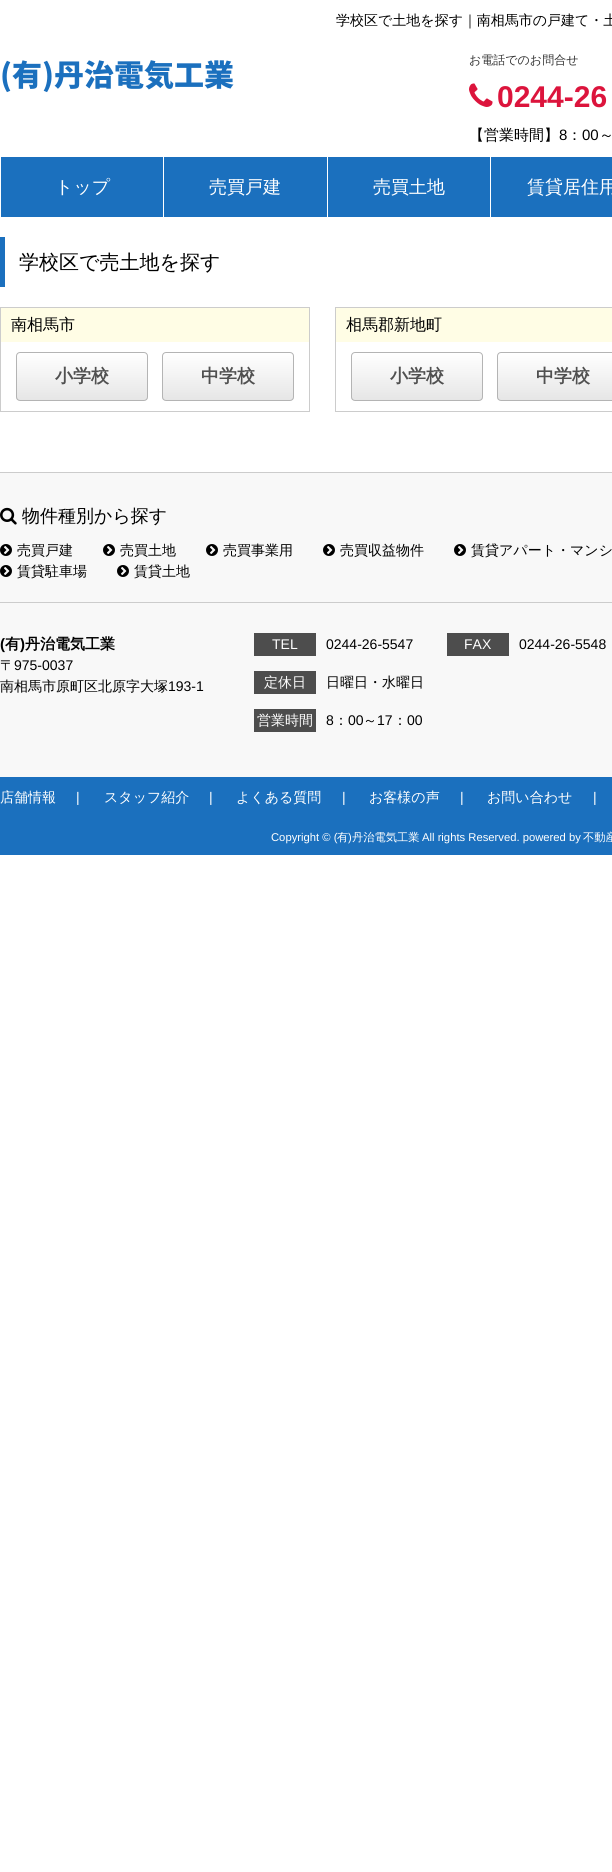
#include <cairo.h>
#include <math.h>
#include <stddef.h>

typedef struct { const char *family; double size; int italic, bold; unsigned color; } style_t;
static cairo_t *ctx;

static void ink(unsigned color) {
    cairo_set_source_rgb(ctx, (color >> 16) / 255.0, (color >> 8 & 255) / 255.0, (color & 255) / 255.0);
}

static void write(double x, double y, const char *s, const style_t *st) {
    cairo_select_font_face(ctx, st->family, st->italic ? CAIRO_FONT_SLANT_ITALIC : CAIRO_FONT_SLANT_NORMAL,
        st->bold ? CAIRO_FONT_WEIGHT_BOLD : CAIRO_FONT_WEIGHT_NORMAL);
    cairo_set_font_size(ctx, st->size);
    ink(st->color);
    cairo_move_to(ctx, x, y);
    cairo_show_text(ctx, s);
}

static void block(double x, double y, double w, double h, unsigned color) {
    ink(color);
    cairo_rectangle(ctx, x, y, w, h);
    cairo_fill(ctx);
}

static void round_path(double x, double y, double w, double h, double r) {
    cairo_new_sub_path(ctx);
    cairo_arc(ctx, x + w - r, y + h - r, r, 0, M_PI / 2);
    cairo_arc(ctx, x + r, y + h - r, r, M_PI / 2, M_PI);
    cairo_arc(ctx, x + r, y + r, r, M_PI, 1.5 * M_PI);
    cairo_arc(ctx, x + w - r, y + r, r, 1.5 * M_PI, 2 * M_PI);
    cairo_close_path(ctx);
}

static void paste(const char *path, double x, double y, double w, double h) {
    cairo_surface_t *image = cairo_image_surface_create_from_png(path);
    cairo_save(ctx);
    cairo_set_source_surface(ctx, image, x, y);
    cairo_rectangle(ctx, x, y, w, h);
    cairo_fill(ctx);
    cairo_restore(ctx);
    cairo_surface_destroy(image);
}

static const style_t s1 = {"WenQuanYi Zen Hei Medium", 14, 0, 0, 0x000000};
static const style_t s2 = {"Noto Sans JP Black", 30, 0, 0, 0x1b70be};
static const style_t s3 = {"WenQuanYi Zen Hei Medium", 12, 0, 0, 0x333333};
static const style_t s4 = {"Liberation Sans", 30, 0, 1, 0xdc143c};
static const style_t s5 = {"WenQuanYi Zen Hei Medium", 15, 0, 0, 0x000000};
static const style_t s6 = {"Liberation Sans", 15, 0, 0, 0x000000};
static const style_t s7 = {"WenQuanYi Zen Hei Medium", 18, 0, 0, 0xffffff};
static const style_t s8 = {"WenQuanYi Zen Hei Medium", 20, 0, 0, 0x000000};
static const style_t s9 = {"WenQuanYi Zen Hei Medium", 16, 0, 0, 0x000000};
static const style_t s10 = {"WenQuanYi Zen Hei", 18, 0, 1, 0x505050};
static const style_t s11 = {"WenQuanYi Zen Hei Medium", 18, 0, 0, 0x000000};
static const style_t s12 = {"Liberation Sans", 15, 0, 1, 0x000000};
static const style_t s13 = {"WenQuanYi Zen Hei", 15, 0, 1, 0x000000};
static const style_t s14 = {"Liberation Sans", 14, 0, 0, 0x000000};
static const style_t s15 = {"Liberation Sans", 14, 0, 0, 0xffffff};
static const style_t s16 = {"WenQuanYi Zen Hei Medium", 14, 0, 0, 0xffffff};
static const style_t s17 = {"Liberation Sans", 11.25, 0, 0, 0xffffff};
static const style_t s18 = {"WenQuanYi Zen Hei Medium", 11.25, 0, 0, 0xffffff};

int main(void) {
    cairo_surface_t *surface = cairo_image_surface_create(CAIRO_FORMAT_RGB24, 612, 1872);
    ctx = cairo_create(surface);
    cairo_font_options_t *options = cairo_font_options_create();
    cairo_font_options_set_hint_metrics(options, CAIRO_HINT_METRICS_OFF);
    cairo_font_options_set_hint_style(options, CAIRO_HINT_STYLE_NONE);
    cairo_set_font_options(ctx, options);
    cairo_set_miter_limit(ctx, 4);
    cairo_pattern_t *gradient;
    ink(0xffffff);
    cairo_paint(ctx);
    write(336, 25, "学校区で土地を探す｜南相馬市の戸建て・土", &s1);
    write(0, 86, "(有)丹治電気工業", &s2);
    write(469, 64, "お電話でのお問合せ", &s3);
    paste("pic1.png", 469, 83, 24, 24);
    write(497, 107, "0244-26", &s4);
    write(469, 140, "【営業時間】", &s5);
    write(559, 140, "8", &s6);
    write(567, 140, "：", &s5);
    write(582, 140, "00", &s6);
    write(599, 140, "～", &s5);
    block(1, 157, 611, 60, 0x1b70be);
    write(55, 193, "トップ", &s7);
    block(163, 157, 1, 60, 0xffffff);
    write(209, 193, "売買戸建", &s7);
    block(327, 157, 1, 60, 0xffffff);
    write(373, 193, "売買土地", &s7);
    block(490, 157, 1, 60, 0xffffff);
    write(527, 193, "賃貸居住用", &s7);
    block(0, 237, 5, 50, 0x1b70be);
    write(19, 269, "学校区で売土地を探す", &s8);
    cairo_rectangle(ctx, 0.5, 307.5, 309, 104);
    ink(0xcccccc);
    cairo_set_line_width(ctx, 1);
    cairo_stroke(ctx);
    block(1, 308, 308, 34, 0xfffde5);
    write(11, 330, "南相馬市", &s9);
    cairo_save(ctx);
    round_path(16, 352, 132, 49, 4);
    cairo_clip(ctx);
    gradient = cairo_pattern_create_linear(82, 353, 82, 400);
    cairo_pattern_add_color_stop_rgba(gradient, 0, 1, 1, 1, 1);
    cairo_pattern_add_color_stop_rgba(gradient, 1, 0.902, 0.902, 0.902, 1);
    cairo_set_source(ctx, gradient);
    cairo_pattern_destroy(gradient);
    cairo_rectangle(ctx, 16, 353, 132, 47);
    cairo_fill(ctx);
    cairo_restore(ctx);
    round_path(16.5, 352.5, 131, 48, 3.5);
    ink(0xb4b4b4);
    cairo_stroke(ctx);
    write(55, 382, "小学校", &s10);
    cairo_save(ctx);
    round_path(162, 352, 132, 49, 4);
    cairo_clip(ctx);
    gradient = cairo_pattern_create_linear(228, 353, 228, 400);
    cairo_pattern_add_color_stop_rgba(gradient, 0, 1, 1, 1, 1);
    cairo_pattern_add_color_stop_rgba(gradient, 1, 0.902, 0.902, 0.902, 1);
    cairo_set_source(ctx, gradient);
    cairo_pattern_destroy(gradient);
    cairo_rectangle(ctx, 162, 353, 132, 47);
    cairo_fill(ctx);
    cairo_restore(ctx);
    round_path(162.5, 352.5, 131, 48, 3.5);
    ink(0xb4b4b4);
    cairo_stroke(ctx);
    write(201, 382, "中学校", &s10);
    cairo_rectangle(ctx, 335.5, 307.5, 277, 104);
    ink(0xcccccc);
    cairo_stroke(ctx);
    block(336, 308, 276, 34, 0xfffde5);
    write(346, 330, "相馬郡新地町", &s9);
    cairo_save(ctx);
    round_path(351, 352, 132, 49, 4);
    cairo_clip(ctx);
    gradient = cairo_pattern_create_linear(417, 353, 417, 400);
    cairo_pattern_add_color_stop_rgba(gradient, 0, 1, 1, 1, 1);
    cairo_pattern_add_color_stop_rgba(gradient, 1, 0.902, 0.902, 0.902, 1);
    cairo_set_source(ctx, gradient);
    cairo_pattern_destroy(gradient);
    cairo_rectangle(ctx, 351, 353, 132, 47);
    cairo_fill(ctx);
    cairo_restore(ctx);
    round_path(351.5, 352.5, 131, 48, 3.5);
    ink(0xb4b4b4);
    cairo_stroke(ctx);
    write(390, 382, "小学校", &s10);
    cairo_save(ctx);
    round_path(497, 352, 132, 49, 4);
    cairo_clip(ctx);
    gradient = cairo_pattern_create_linear(563, 353, 563, 400);
    cairo_pattern_add_color_stop_rgba(gradient, 0, 1, 1, 1, 1);
    cairo_pattern_add_color_stop_rgba(gradient, 1, 0.902, 0.902, 0.902, 1);
    cairo_set_source(ctx, gradient);
    cairo_pattern_destroy(gradient);
    cairo_rectangle(ctx, 497, 353, 115, 47);
    cairo_fill(ctx);
    cairo_restore(ctx);
    round_path(497.5, 352.5, 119, 48, 3.5);
    ink(0xb4b4b4);
    cairo_stroke(ctx);
    write(536, 382, "中学校", &s10);
    block(0, 473, 612, 304, 0xf8f8f8);
    block(0, 472, 612, 1, 0xcccccc);
    block(0, 602, 612, 1, 0xcccccc);
    paste("pic2.png", 0, 507, 17, 18);
    write(22, 522, "物件種別から探す", &s11);
    paste("pic3.png", 0, 544, 12, 12);
    write(17, 555, "売買戸建", &s1);
    paste("pic3.png", 103, 544, 12, 12);
    write(120, 555, "売買土地", &s1);
    paste("pic3.png", 206, 544, 12, 12);
    write(223, 555, "売買事業用", &s1);
    paste("pic3.png", 323, 544, 12, 12);
    write(340, 555, "売買収益物件", &s1);
    paste("pic3.png", 454, 544, 12, 12);
    write(471, 555, "賃貸アパート・マンシ", &s1);
    paste("pic3.png", 0, 565, 12, 12);
    write(17, 576, "賃貸駐車場", &s1);
    paste("pic3.png", 117, 565, 12, 12);
    write(134, 576, "賃貸土地", &s1);
    write(0, 649, "(", &s12);
    write(5, 649, "有", &s13);
    write(20, 649, ")", &s12);
    write(25, 649, "丹治電気工業", &s13);
    write(0, 670, "〒", &s1);
    write(14, 670, "975-0037", &s14);
    write(0, 691, "南相馬市原町区北原字大塚", &s1);
    write(168, 691, "193-1", &s14);
    block(254, 633, 62, 23, 0x4d4d4d);
    write(272, 649, "TEL", &s15);
    write(326, 649, "0244-26-5547", &s14);
    block(447, 633, 62, 23, 0x4d4d4d);
    write(464, 649, "FAX", &s15);
    write(519, 649, "0244-26-5548", &s14);
    block(254, 671, 62, 23, 0x4d4d4d);
    write(264, 687, "定休日", &s16);
    write(326, 687, "日曜日・水曜日", &s1);
    block(254, 709, 62, 23, 0x4d4d4d);
    write(257, 725, "営業時間", &s16);
    write(326, 725, "8", &s14);
    write(334, 725, "：", &s1);
    write(348, 725, "00", &s14);
    write(363, 725, "～", &s1);
    write(377, 725, "17", &s14);
    write(393, 725, "：", &s1);
    write(407, 725, "00", &s14);
    block(0, 777, 612, 78, 0x1b70be);
    write(0, 802, "店舗情報", &s16);
    write(76, 802, "|", &s15);
    write(104, 802, "スタッフ紹介", &s16);
    write(209, 802, "|", &s15);
    write(236, 802, "よくある質問", &s16);
    write(342, 802, "|", &s15);
    write(369, 802, "お客様の声", &s16);
    write(460, 802, "|", &s15);
    write(487, 802, "お問い合わせ", &s16);
    write(593, 802, "|", &s15);
    write(271, 841, "Copyright © (", &s17);
    write(337, 841, "有", &s18);
    write(348, 841, ")", &s17);
    write(352, 841, "丹治電気工業", &s18);
    write(422, 841, "All rights Reserved. powered by", &s17);
    write(583, 841, "不動産", &s18);
    cairo_surface_write_to_png(surface, "screenshot.png");
    cairo_font_options_destroy(options);
    cairo_destroy(ctx);
    cairo_surface_destroy(surface);
    return 0;
}
